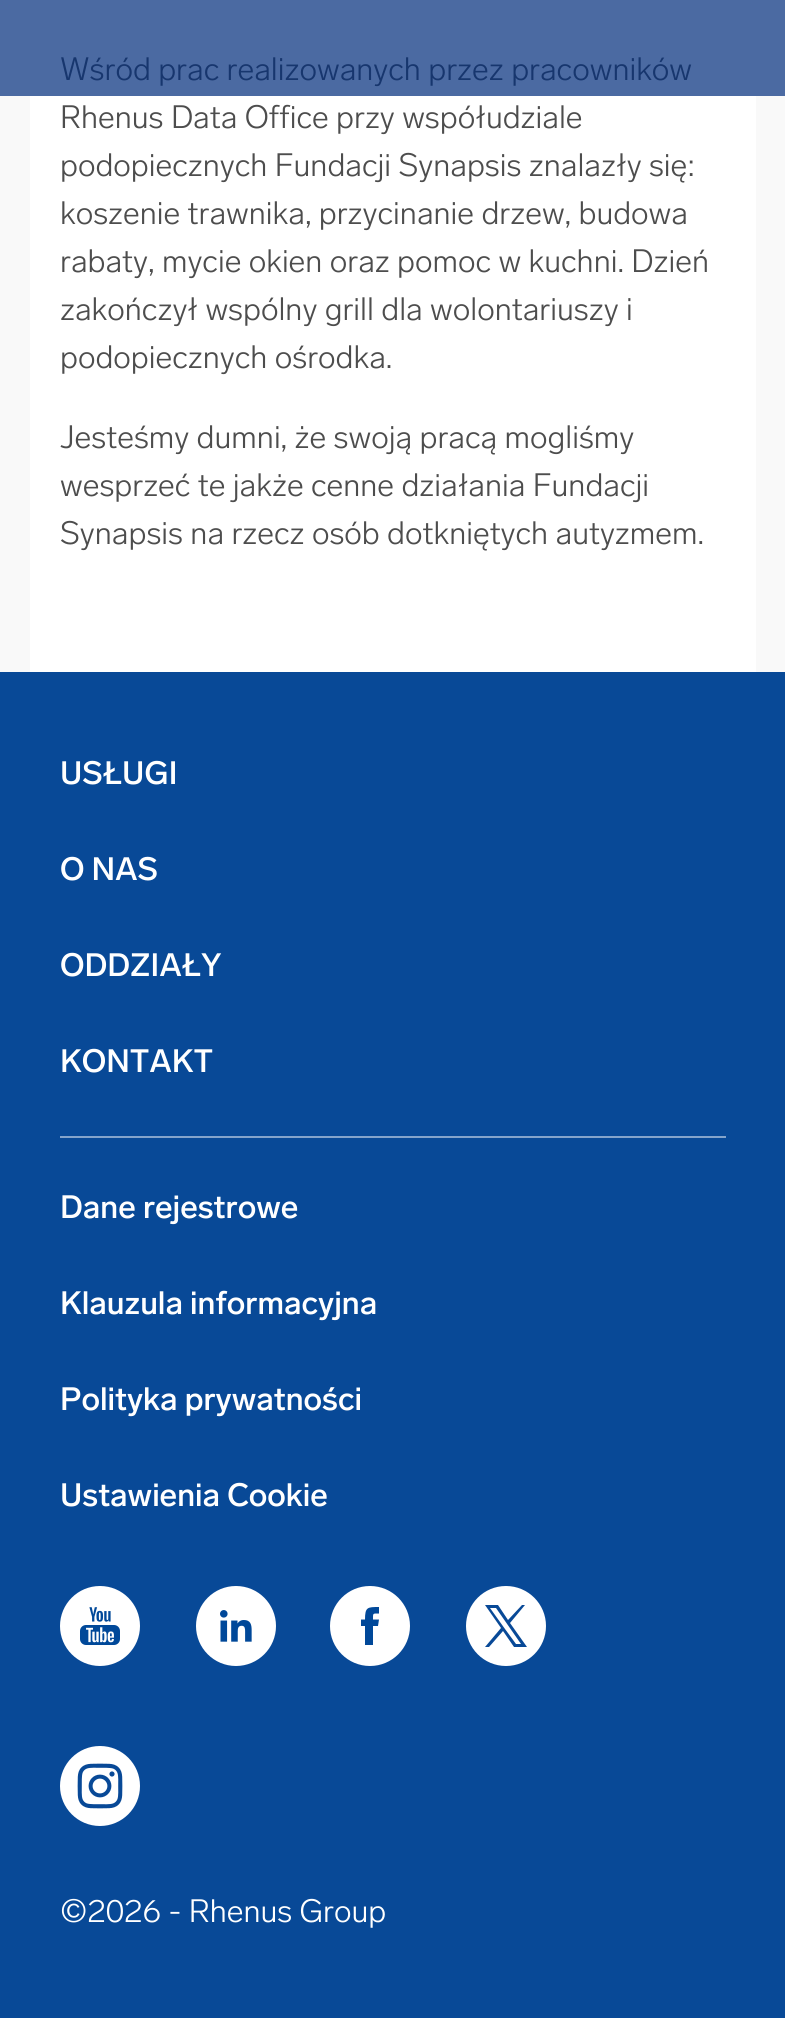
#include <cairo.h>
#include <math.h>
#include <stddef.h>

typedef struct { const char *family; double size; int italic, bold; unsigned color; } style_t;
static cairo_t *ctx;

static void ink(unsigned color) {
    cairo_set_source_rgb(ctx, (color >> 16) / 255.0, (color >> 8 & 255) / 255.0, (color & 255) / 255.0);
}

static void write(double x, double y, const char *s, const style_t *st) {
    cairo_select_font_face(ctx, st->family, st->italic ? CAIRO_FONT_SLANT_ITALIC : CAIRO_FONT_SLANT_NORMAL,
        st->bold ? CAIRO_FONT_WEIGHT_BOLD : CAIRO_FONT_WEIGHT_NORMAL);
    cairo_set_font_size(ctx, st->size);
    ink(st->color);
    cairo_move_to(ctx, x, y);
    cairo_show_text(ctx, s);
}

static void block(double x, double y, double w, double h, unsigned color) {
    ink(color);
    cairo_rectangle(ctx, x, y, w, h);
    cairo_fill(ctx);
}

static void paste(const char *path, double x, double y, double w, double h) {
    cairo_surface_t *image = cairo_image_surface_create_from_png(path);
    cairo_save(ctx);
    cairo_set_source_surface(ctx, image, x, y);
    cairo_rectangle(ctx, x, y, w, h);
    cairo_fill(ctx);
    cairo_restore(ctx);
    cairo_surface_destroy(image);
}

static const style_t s1 = {"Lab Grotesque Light", 32, 0, 0, 0x17366e};
static const style_t s2 = {"Lab Grotesque Light", 32, 0, 0, 0x4d4d4d};
static const style_t s3 = {"Lab Grotesque Medium", 32, 0, 0, 0xffffff};
static const style_t s4 = {"Lab Grotesque Light", 32, 0, 0, 0xffffff};

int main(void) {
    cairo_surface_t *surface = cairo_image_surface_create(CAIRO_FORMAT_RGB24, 785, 2018);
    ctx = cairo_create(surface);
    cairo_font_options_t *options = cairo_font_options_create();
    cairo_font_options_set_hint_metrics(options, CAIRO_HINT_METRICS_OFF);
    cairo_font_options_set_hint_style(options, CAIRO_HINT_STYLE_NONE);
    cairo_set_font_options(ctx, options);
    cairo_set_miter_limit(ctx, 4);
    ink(0xf9f9f9);
    cairo_paint(ctx);
    block(0, 0, 785, 96, 0x4b6aa2);
    block(30, 96, 726, 576, 0xffffff);
    write(60, 80, "Wśród prac realizowanych przez pracowników", &s1);
    write(60, 128, "Rhenus Data Office przy współudziale", &s2);
    write(60, 176, "podopiecznych Fundacji Synapsis znalazły się:", &s2);
    write(60, 224, "koszenie trawnika, przycinanie drzew, budowa", &s2);
    write(60, 272, "rabaty, mycie okien oraz pomoc w kuchni. Dzień", &s2);
    write(60, 320, "zakończył wspólny grill dla wolontariuszy i", &s2);
    write(60, 368, "podopiecznych ośrodka.", &s2);
    write(60, 448, "Jesteśmy dumni, że swoją pracą mogliśmy", &s2);
    write(60, 496, "wesprzeć te jakże cenne działania Fundacji", &s2);
    write(60, 544, "Synapsis na rzecz osób dotkniętych autyzmem.", &s2);
    block(0, 672, 785, 1346, 0x084997);
    write(60, 784, "USŁUGI", &s3);
    write(60, 880, "O NAS", &s3);
    write(60, 976, "ODDZIAŁY", &s3);
    write(60, 1072, "KONTAKT", &s3);
    block(60, 1136, 666, 2, 0x84a4cb);
    write(60, 1218, "Dane rejestrowe", &s3);
    write(60, 1314, "Klauzula informacyjna", &s3);
    write(60, 1410, "Polityka prywatności", &s3);
    write(60, 1506, "Ustawienia Cookie", &s3);
    paste("pic1.png", 60, 1586, 80, 80);
    paste("pic2.png", 196, 1586, 80, 80);
    cairo_arc(ctx, 370, 1626, 40, 0, 2 * M_PI);
    cairo_fill(ctx);
    ink(0x004899);
    cairo_new_path(ctx);
    cairo_move_to(ctx, 373, 1645);
    cairo_line_to(ctx, 365, 1645);
    cairo_line_to(ctx, 365, 1626);
    cairo_line_to(ctx, 361, 1626);
    cairo_line_to(ctx, 361, 1619.5);
    cairo_line_to(ctx, 365, 1619.5);
    cairo_curve_to(ctx, 365, 1607, 367.5, 1607, 379, 1607);
    cairo_line_to(ctx, 379, 1613.5);
    cairo_curve_to(ctx, 372.5, 1613.5, 373, 1613, 373, 1619.5);
    cairo_line_to(ctx, 379, 1619.5);
    cairo_line_to(ctx, 378, 1626);
    cairo_line_to(ctx, 373, 1626);
    cairo_close_path(ctx);
    cairo_fill(ctx);
    ink(0xffffff);
    cairo_arc(ctx, 506, 1626, 40, 0, 2 * M_PI);
    cairo_fill(ctx);
    ink(0x084997);
    cairo_new_path(ctx);
    cairo_move_to(ctx, 510, 1623);
    cairo_line_to(ctx, 525, 1605);
    cairo_line_to(ctx, 522, 1605);
    cairo_line_to(ctx, 508, 1620);
    cairo_line_to(ctx, 498, 1605);
    cairo_line_to(ctx, 485, 1605);
    cairo_line_to(ctx, 501, 1628);
    cairo_line_to(ctx, 485, 1647);
    cairo_line_to(ctx, 489, 1647);
    cairo_line_to(ctx, 503, 1631);
    cairo_line_to(ctx, 514, 1647);
    cairo_line_to(ctx, 527, 1647);
    cairo_close_path(ctx);
    cairo_move_to(ctx, 505, 1629);
    cairo_line_to(ctx, 490, 1608);
    cairo_line_to(ctx, 496, 1608);
    cairo_line_to(ctx, 521, 1644);
    cairo_line_to(ctx, 516, 1644);
    cairo_close_path(ctx);
    cairo_fill(ctx);
    paste("pic3.png", 60, 1746, 80, 80);
    write(60, 1922, "©2026 - Rhenus Group", &s4);
    cairo_surface_write_to_png(surface, "screenshot.png");
    cairo_font_options_destroy(options);
    cairo_destroy(ctx);
    cairo_surface_destroy(surface);
    return 0;
}
